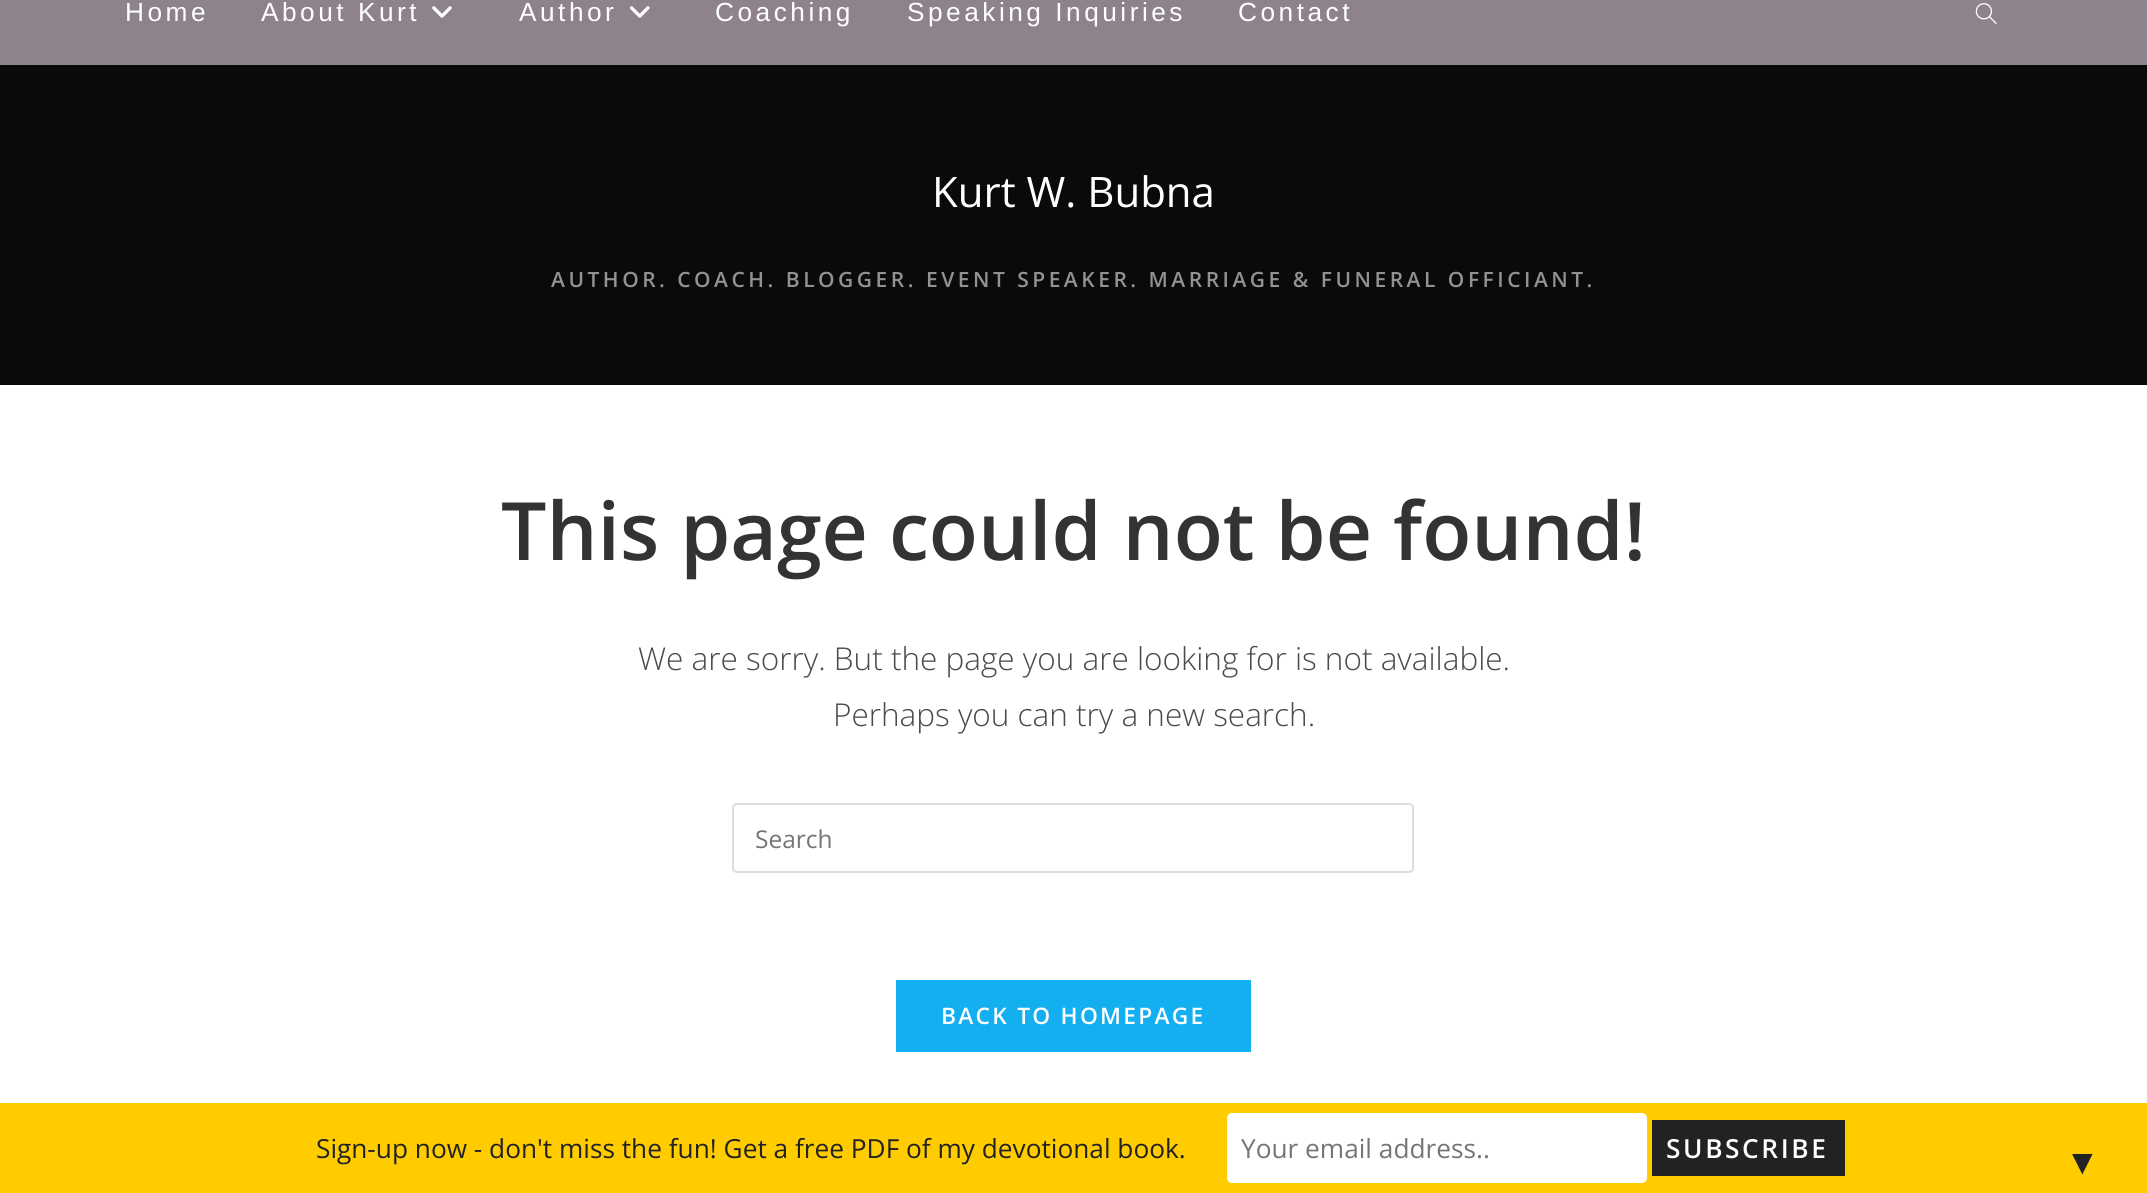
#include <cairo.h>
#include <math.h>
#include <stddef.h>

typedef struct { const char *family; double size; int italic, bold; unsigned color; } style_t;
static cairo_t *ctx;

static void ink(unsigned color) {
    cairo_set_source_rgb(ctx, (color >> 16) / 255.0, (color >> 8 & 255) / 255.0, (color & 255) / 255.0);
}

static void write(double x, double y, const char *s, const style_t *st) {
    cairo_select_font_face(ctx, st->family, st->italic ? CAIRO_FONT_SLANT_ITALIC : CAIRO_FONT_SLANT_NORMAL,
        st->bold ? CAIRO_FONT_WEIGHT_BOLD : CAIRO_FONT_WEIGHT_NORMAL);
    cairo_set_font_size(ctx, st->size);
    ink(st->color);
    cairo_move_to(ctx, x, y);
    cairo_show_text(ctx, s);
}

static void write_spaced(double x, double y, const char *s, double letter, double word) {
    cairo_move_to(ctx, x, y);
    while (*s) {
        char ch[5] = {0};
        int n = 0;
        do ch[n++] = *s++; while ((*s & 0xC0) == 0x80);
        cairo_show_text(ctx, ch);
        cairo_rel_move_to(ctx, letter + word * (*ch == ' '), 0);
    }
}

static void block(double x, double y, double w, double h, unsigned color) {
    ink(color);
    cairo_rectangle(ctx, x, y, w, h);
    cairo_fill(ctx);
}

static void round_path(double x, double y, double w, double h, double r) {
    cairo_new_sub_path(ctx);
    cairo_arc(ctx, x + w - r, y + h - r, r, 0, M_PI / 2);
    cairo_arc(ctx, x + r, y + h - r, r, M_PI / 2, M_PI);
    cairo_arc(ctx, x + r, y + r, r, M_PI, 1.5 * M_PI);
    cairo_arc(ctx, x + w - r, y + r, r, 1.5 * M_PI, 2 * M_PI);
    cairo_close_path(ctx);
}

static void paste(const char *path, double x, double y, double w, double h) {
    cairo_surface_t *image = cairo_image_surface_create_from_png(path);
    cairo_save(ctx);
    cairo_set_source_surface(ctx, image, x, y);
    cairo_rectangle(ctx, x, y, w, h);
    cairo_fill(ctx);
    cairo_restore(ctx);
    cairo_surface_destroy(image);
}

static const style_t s1 = {"Open Sans", 42, 0, 0, 0xffffff};
static const style_t s2 = {"Open Sans SemiBold", 80.5, 0, 0, 0x333333};
static const style_t s3 = {"Open Sans Light", 31.5, 0, 0, 0x4a4a4a};
static const style_t s4 = {"Open Sans", 24.5, 0, 0, 0x757575};
static const style_t s5 = {"Open Sans", 26.25, 0, 0, 0x222222};
static const style_t s6 = {"Open Sans", 26.25, 0, 0, 0x757575};
static const style_t s7 = {"Liberation Sans", 35, 0, 0, 0x222222};

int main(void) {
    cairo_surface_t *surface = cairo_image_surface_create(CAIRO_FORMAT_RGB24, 2147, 1193);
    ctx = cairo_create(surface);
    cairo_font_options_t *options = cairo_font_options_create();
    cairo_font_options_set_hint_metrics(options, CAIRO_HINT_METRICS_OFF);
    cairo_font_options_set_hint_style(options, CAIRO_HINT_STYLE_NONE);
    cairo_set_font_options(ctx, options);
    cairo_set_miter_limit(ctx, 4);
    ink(0xffffff);
    cairo_paint(ctx);
    block(0, 65, 2147, 320, 0x0a0a0a);
    block(0, 0, 2147, 65, 0x8e828d);
    cairo_select_font_face(ctx, "Liberation Sans", CAIRO_FONT_SLANT_NORMAL, CAIRO_FONT_WEIGHT_NORMAL);
    cairo_set_font_size(ctx, 26.25);
    ink(0xffffff);
    write_spaced(125, 21, "Home", 3.5, 0);
    write_spaced(261, 21, "About Kurt", 3.5, 0);
    paste("pic1.png", 432, 6, 20, 12);
    write_spaced(519, 21, "Author", 3.5, 0);
    paste("pic2.png", 629, 6, 21, 12);
    write_spaced(715, 21, "Coaching", 3.5, 0);
    write_spaced(907, 21, "Speaking Inquiries", 3.5, 0);
    write_spaced(1238, 21, "Contact", 3.5, 0);
    paste("pic3.png", 1975, 3, 22, 21);
    write(932, 207, "Kurt W. Bubna", &s1);
    cairo_select_font_face(ctx, "Open Sans SemiBold", CAIRO_FONT_SLANT_NORMAL, CAIRO_FONT_WEIGHT_NORMAL);
    cairo_set_font_size(ctx, 21);
    ink(0x929292);
    write_spaced(551, 287, "AUTHOR. COACH. BLOGGER. EVENT SPEAKER. MARRIAGE & FUNERAL OFFICIANT.", 3.5, 0);
    write(501, 560, "This page could not be found!", &s2);
    write(638, 670, "We are sorry. But the page you are looking for is not available.", &s3);
    write(833, 726, "Perhaps you can try a new search.", &s3);
    round_path(733, 804, 680, 68, 4);
    ink(0xdddddd);
    cairo_stroke(ctx);
    write(755, 848, "Search", &s4);
    block(896, 980, 355, 72, 0x13aff0);
    cairo_select_font_face(ctx, "Open Sans SemiBold", CAIRO_FONT_SLANT_NORMAL, CAIRO_FONT_WEIGHT_NORMAL);
    cairo_set_font_size(ctx, 22.75);
    ink(0xffffff);
    write_spaced(941, 1024, "BACK TO HOMEPAGE", 2.25, 0);
    block(0, 1103, 2147, 90, 0xffcc00);
    write(316, 1158, "Sign-up now - don't miss the fun! Get a free PDF of my devotional book.", &s5);
    ink(0xffffff);
    round_path(1228, 1114, 418, 68, 4);
    cairo_fill_preserve(ctx);
    cairo_stroke(ctx);
    write(1241, 1158, "Your email address..", &s6);
    block(1652, 1120, 193, 56, 0x222222);
    cairo_select_font_face(ctx, "Open Sans SemiBold", CAIRO_FONT_SLANT_NORMAL, CAIRO_FONT_WEIGHT_NORMAL);
    ink(0xffffff);
    write_spaced(1666, 1158, "SUBSCRIBE", 2.6, 0);
    write(2065, 1174, "▼", &s7);
    cairo_surface_write_to_png(surface, "screenshot.png");
    cairo_font_options_destroy(options);
    cairo_destroy(ctx);
    cairo_surface_destroy(surface);
    return 0;
}
